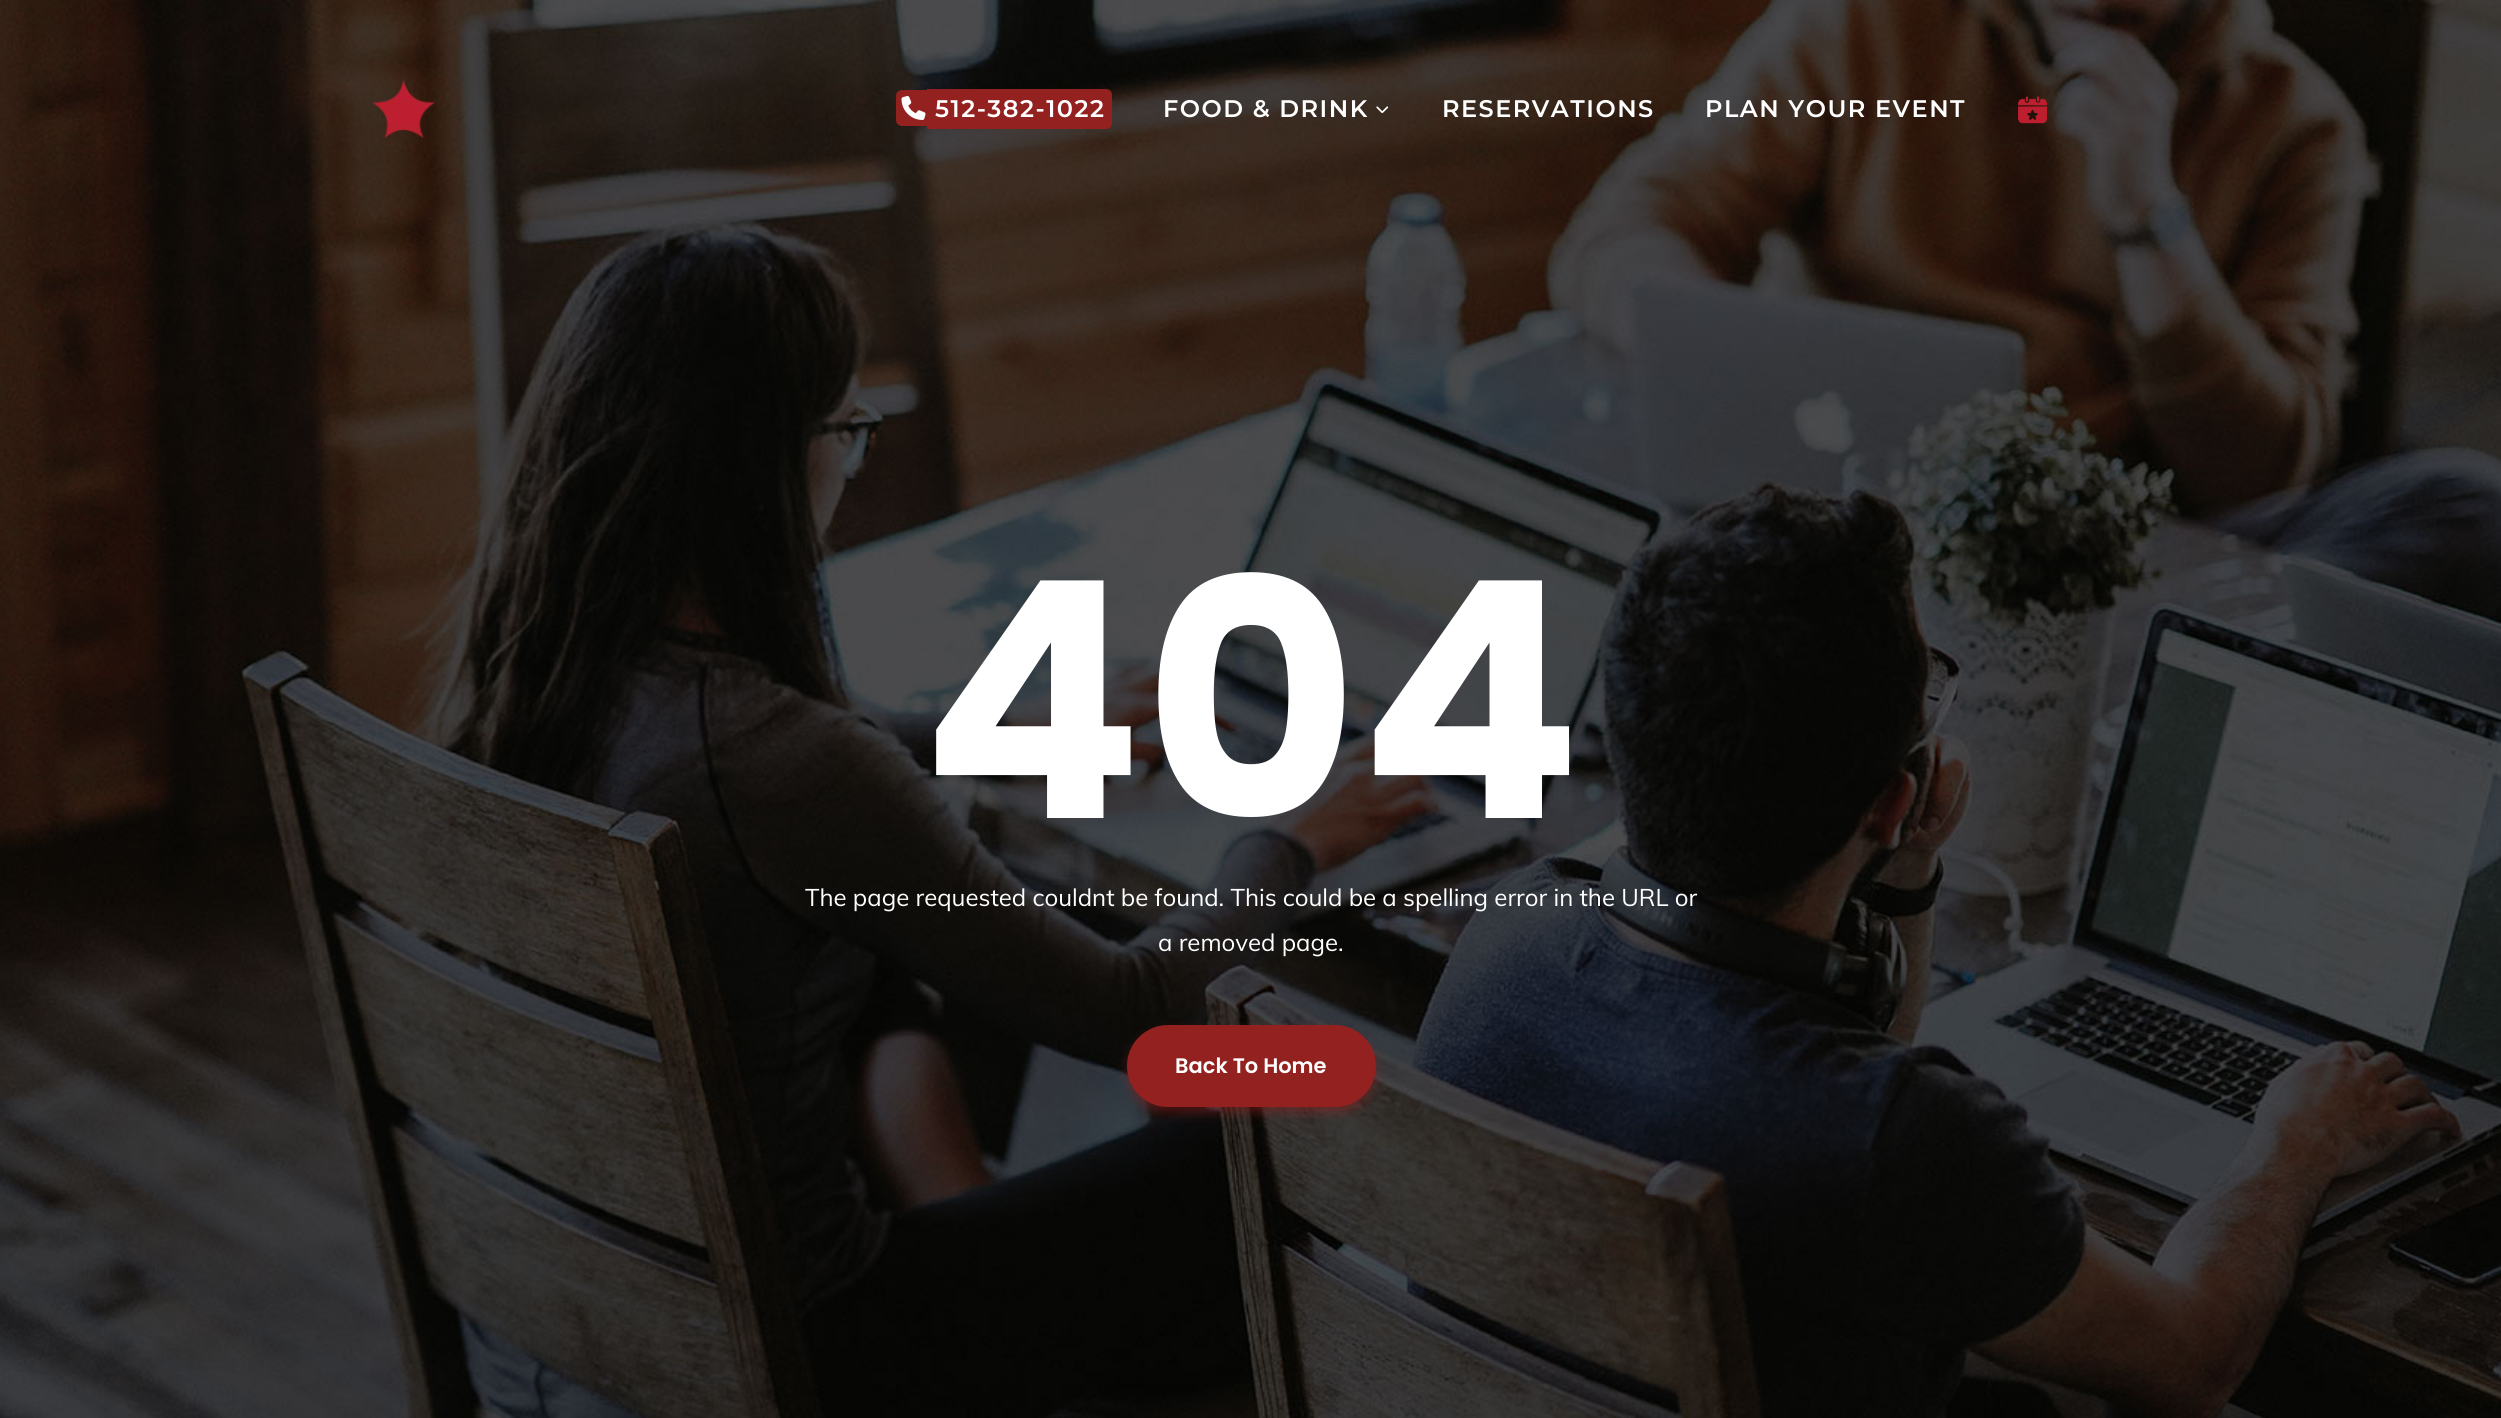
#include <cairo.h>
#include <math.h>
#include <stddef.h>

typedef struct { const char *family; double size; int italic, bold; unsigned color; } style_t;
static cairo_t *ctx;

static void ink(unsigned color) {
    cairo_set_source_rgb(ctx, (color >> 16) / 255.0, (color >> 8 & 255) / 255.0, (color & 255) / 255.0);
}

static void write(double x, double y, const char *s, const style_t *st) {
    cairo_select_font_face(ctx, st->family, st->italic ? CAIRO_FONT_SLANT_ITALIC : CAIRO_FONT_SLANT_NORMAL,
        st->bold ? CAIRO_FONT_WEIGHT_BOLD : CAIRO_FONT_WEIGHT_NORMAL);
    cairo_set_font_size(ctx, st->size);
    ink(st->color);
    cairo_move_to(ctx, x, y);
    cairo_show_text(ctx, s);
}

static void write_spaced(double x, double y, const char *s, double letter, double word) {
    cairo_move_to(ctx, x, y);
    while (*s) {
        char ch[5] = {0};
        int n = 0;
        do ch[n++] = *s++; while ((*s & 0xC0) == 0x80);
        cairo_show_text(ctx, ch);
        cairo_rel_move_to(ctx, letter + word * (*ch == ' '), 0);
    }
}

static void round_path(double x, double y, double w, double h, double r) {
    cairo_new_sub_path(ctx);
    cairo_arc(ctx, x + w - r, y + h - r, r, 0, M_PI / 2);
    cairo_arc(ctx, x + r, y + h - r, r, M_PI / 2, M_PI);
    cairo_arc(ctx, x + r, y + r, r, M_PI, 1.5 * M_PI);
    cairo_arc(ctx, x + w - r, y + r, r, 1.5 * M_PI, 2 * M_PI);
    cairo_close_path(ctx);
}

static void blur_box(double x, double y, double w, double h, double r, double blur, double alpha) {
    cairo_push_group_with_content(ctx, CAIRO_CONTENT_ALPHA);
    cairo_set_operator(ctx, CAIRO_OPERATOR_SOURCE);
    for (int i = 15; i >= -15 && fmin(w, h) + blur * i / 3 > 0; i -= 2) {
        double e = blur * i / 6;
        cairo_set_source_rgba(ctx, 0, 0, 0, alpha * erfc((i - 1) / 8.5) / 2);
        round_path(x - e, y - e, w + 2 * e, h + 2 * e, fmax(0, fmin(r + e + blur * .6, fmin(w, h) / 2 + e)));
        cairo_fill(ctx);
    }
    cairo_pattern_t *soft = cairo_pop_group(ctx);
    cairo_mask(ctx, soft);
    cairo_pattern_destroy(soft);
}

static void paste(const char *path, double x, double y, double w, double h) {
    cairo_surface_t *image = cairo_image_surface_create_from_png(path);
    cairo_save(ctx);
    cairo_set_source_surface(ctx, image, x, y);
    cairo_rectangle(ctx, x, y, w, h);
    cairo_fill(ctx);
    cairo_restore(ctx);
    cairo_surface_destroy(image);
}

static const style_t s1 = {"Poppins", 330, 0, 1, 0xffffff};
static const style_t s2 = {"Muli", 24, 0, 0, 0xffffff};
static const style_t s3 = {"Poppins SemiBold", 21, 0, 0, 0xffffff};

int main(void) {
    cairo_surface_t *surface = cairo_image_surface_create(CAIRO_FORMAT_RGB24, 2501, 1418);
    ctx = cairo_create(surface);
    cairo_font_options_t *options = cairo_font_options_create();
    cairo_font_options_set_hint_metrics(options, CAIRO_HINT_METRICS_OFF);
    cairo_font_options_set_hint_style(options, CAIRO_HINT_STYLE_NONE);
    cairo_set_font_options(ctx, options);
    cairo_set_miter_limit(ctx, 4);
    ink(0xffffff);
    cairo_paint(ctx);
    paste("pic5.png", 0, 0, 2501, 1418);
    paste("pic1.png", 373, 79, 62, 59);
    ink(0x922120);
    cairo_new_path(ctx);
    cairo_move_to(ctx, 902, 90);
    cairo_line_to(ctx, 927, 90);
    cairo_line_to(ctx, 927, 126);
    cairo_line_to(ctx, 902, 126);
    cairo_curve_to(ctx, 898.5, 126, 896, 123.5, 896, 120);
    cairo_line_to(ctx, 896, 96);
    cairo_curve_to(ctx, 896, 92.5, 898.5, 90, 902, 90);
    cairo_close_path(ctx);
    cairo_fill(ctx);
    cairo_new_path(ctx);
    cairo_move_to(ctx, 927, 89);
    cairo_line_to(ctx, 1106, 89);
    cairo_curve_to(ctx, 1109.5, 89, 1112, 91.5, 1112, 95);
    cairo_line_to(ctx, 1112, 123);
    cairo_curve_to(ctx, 1112, 126.5, 1109.5, 129, 1106, 129);
    cairo_line_to(ctx, 927, 129);
    cairo_close_path(ctx);
    cairo_fill(ctx);
    paste("pic2.png", 901, 96, 25, 24);
    cairo_select_font_face(ctx, "Montserrat SemiBold", CAIRO_FONT_SLANT_NORMAL, CAIRO_FONT_WEIGHT_NORMAL);
    cairo_set_font_size(ctx, 24);
    ink(0xffffff);
    write_spaced(935, 117, "512-382-1022", 1.5, 0);
    write_spaced(1163, 117, "FOOD & DRINK", 1.5, 0);
    paste("pic3.png", 1376, 106, 13, 8);
    write_spaced(1442, 117, "RESERVATIONS", 1.5, 0);
    write_spaced(1705, 117, "PLAN YOUR EVENT", 1.5, 0);
    paste("pic4.png", 2018, 96, 30, 28);
    write(920, 818, "404", &s1);
    write(805, 906, "The page requested couldnt be found. This could be a spelling error in the URL or", &s2);
    write(1158, 951, "a removed page.", &s2);
    ink(0x922120);
    blur_box(1127, 1031, 249, 82, 41, 5, 0.48);
    ink(0x922120);
    round_path(1127, 1025, 249, 82, 41);
    cairo_fill(ctx);
    write(1175, 1073, "Back To Home", &s3);
    cairo_surface_write_to_png(surface, "screenshot.png");
    cairo_font_options_destroy(options);
    cairo_destroy(ctx);
    cairo_surface_destroy(surface);
    return 0;
}
